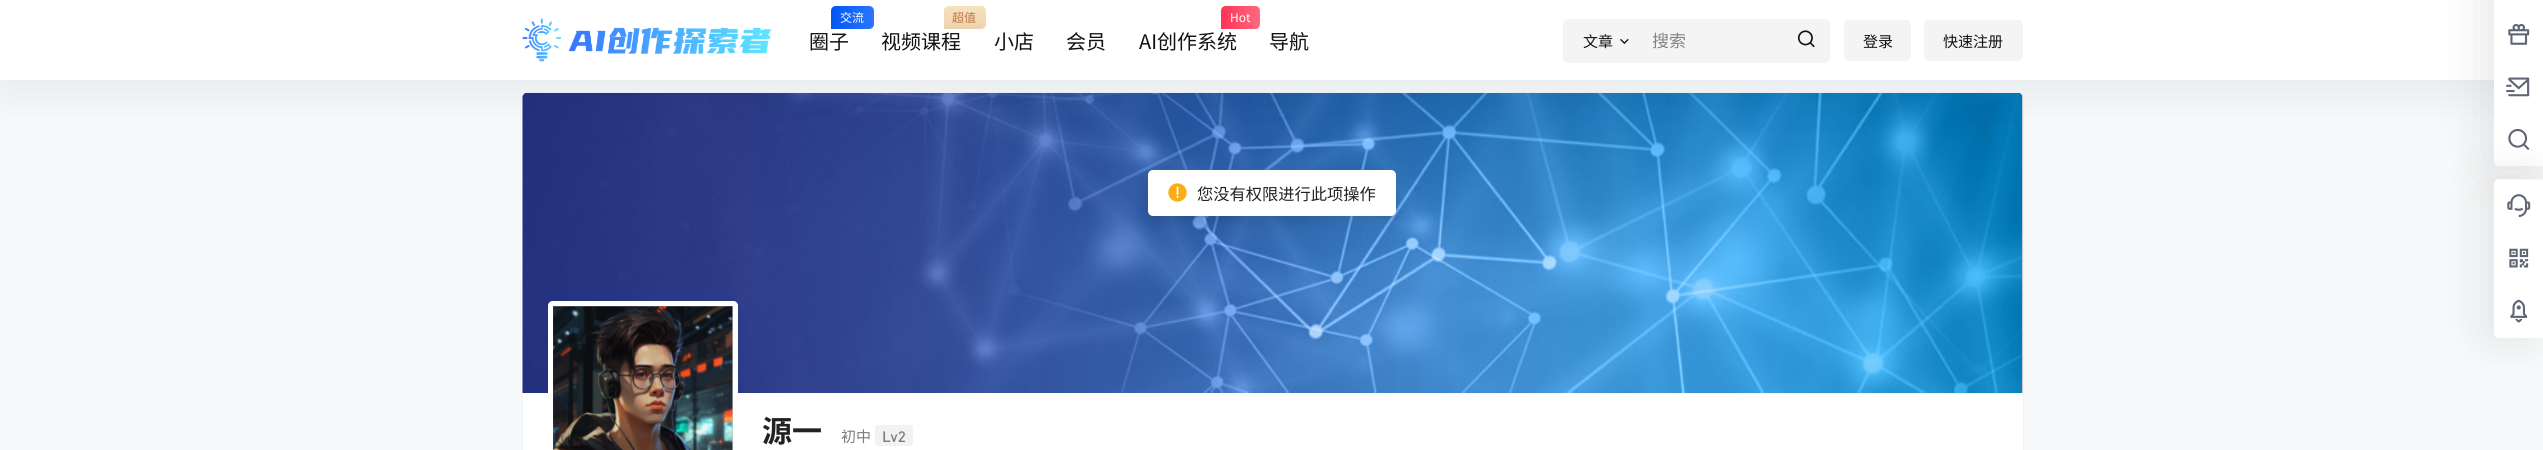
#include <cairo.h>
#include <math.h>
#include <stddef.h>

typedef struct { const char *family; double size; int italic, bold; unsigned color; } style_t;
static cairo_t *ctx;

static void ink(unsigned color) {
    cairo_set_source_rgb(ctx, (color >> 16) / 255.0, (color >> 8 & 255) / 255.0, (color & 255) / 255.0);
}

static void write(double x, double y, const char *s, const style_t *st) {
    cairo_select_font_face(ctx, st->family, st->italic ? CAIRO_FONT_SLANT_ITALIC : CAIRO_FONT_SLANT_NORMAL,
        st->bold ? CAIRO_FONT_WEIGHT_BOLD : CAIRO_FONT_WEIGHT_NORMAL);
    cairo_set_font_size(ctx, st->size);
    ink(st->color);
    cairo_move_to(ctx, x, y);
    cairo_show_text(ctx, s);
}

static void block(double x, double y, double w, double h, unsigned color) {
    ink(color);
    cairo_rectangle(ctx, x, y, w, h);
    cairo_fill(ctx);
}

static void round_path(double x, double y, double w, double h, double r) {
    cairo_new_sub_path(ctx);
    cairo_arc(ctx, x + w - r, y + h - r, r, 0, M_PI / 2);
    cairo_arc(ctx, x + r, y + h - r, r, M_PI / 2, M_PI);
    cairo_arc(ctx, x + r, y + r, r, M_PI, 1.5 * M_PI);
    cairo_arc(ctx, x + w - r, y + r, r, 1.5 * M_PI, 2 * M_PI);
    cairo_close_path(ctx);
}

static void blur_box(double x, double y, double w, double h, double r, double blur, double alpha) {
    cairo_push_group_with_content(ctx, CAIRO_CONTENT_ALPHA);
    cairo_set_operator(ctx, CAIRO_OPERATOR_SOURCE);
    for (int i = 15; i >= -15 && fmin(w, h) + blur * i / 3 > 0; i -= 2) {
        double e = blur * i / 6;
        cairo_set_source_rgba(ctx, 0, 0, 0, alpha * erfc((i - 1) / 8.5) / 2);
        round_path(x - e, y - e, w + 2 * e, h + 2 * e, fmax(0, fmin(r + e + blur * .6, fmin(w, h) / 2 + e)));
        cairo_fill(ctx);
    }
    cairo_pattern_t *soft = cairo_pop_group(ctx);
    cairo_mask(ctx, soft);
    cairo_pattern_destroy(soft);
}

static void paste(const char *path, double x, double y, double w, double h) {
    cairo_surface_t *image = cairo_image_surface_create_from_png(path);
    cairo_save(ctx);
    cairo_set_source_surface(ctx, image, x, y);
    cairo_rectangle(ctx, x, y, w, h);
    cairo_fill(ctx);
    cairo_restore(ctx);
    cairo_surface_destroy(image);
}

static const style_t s1 = {"Noto Sans CJK SC", 12, 0, 0, 0xffffff};
static const style_t s2 = {"Noto Sans CJK SC", 20, 0, 0, 0x121212};
static const style_t s3 = {"Noto Sans CJK SC", 12, 0, 0, 0xbf7648};
static const style_t s4 = {"Noto Sans CJK SC", 15, 0, 0, 0x121212};
static const style_t s5 = {"Noto Sans CJK SC", 17, 0, 0, 0x838383};
static const style_t s6 = {"Noto Sans CJK SC", 30, 0, 1, 0x222222};
static const style_t s7 = {"Noto Sans CJK SC", 15, 0, 0, 0x797c80};
static const style_t s8 = {"DIN Medium", 15, 0, 0, 0x797c80};
static const style_t s9 = {"Noto Sans CJK SC", 16.25, 0, 0, 0x222222};

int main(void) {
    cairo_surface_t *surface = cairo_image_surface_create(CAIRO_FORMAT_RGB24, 2543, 450);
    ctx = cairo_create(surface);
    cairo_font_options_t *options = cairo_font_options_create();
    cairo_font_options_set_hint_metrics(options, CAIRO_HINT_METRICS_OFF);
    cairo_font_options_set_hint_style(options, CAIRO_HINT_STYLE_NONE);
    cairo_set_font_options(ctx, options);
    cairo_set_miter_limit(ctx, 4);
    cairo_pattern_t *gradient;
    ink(0xf7f9fa);
    cairo_paint(ctx);
    ink(0x627c99);
    blur_box(523, 93, 1500, 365, 5, 1, 0.1);
    ink(0xffffff);
    round_path(523, 93, 1500, 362, 5);
    cairo_fill(ctx);
    ink(0xcccccc);
    cairo_new_path(ctx);
    cairo_move_to(ctx, 528, 93);
    cairo_line_to(ctx, 2018, 93);
    cairo_curve_to(ctx, 2021, 93, 2023, 95, 2023, 98);
    cairo_line_to(ctx, 2023, 393);
    cairo_line_to(ctx, 523, 393);
    cairo_line_to(ctx, 523, 98);
    cairo_curve_to(ctx, 523, 95, 525, 93, 528, 93);
    cairo_close_path(ctx);
    cairo_fill(ctx);
    paste("pic10.png", 522, 93, 1500, 300);
    ink(0x113a5d);
    blur_box(0, 6, 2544, 80, 0, 25, 0.1);
    block(0, 0, 2494, 80, 0xffffff);
    paste("pic1.png", 522, 18, 250, 44);
    gradient = cairo_pattern_create_linear(831, 17, 874, 17);
    cairo_pattern_add_color_stop_rgba(gradient, 0, 0, 0.337, 0.953, 1);
    cairo_pattern_add_color_stop_rgba(gradient, 1, 0.169, 0.463, 1, 1);
    cairo_set_source(ctx, gradient);
    cairo_pattern_destroy(gradient);
    cairo_new_path(ctx);
    cairo_move_to(ctx, 836, 6);
    cairo_line_to(ctx, 869, 6);
    cairo_curve_to(ctx, 872, 6, 874, 8, 874, 11);
    cairo_line_to(ctx, 874, 24);
    cairo_curve_to(ctx, 874, 27, 872, 29, 869, 29);
    cairo_line_to(ctx, 831, 29);
    cairo_line_to(ctx, 831, 11);
    cairo_curve_to(ctx, 831, 8, 833, 6, 836, 6);
    cairo_close_path(ctx);
    cairo_fill(ctx);
    write(840, 22, "交流", &s1);
    write(809, 49, "圈子", &s2);
    gradient = cairo_pattern_create_linear(965, 28, 965, 5.6);
    cairo_pattern_add_color_stop_rgba(gradient, 0, 0.937, 0.827, 0.69, 1);
    cairo_pattern_add_color_stop_rgba(gradient, 1, 0.976, 0.882, 0.745, 1);
    cairo_set_source(ctx, gradient);
    cairo_pattern_destroy(gradient);
    cairo_new_path(ctx);
    cairo_move_to(ctx, 949, 6);
    cairo_line_to(ctx, 981, 6);
    cairo_curve_to(ctx, 984, 6, 986, 8, 986, 11);
    cairo_line_to(ctx, 986, 24);
    cairo_curve_to(ctx, 986, 27, 984, 29, 981, 29);
    cairo_line_to(ctx, 944, 29);
    cairo_line_to(ctx, 944, 11);
    cairo_curve_to(ctx, 944, 8, 946, 6, 949, 6);
    cairo_close_path(ctx);
    cairo_fill(ctx);
    write(952, 22, "超值", &s3);
    write(881, 49, "视频课程", &s2);
    write(994, 49, "小店", &s2);
    write(1066, 49, "会员", &s2);
    gradient = cairo_pattern_create_linear(1221, 17, 1259, 17);
    cairo_pattern_add_color_stop_rgba(gradient, 0, 1, 0.2, 0.333, 1);
    cairo_pattern_add_color_stop_rgba(gradient, 1, 1, 0.404, 0.502, 1);
    cairo_set_source(ctx, gradient);
    cairo_pattern_destroy(gradient);
    cairo_new_path(ctx);
    cairo_move_to(ctx, 1226, 6);
    cairo_line_to(ctx, 1255, 6);
    cairo_curve_to(ctx, 1258, 6, 1260, 8, 1260, 11);
    cairo_line_to(ctx, 1260, 24);
    cairo_curve_to(ctx, 1260, 27, 1258, 29, 1255, 29);
    cairo_line_to(ctx, 1221, 29);
    cairo_line_to(ctx, 1221, 11);
    cairo_curve_to(ctx, 1221, 8, 1223, 6, 1226, 6);
    cairo_close_path(ctx);
    cairo_fill(ctx);
    write(1230, 22, "Hot", &s1);
    write(1139, 49, "AI创作系统", &s2);
    write(1269, 49, "导航", &s2);
    ink(0xf4f4f4);
    round_path(1563, 19, 267, 44, 5);
    cairo_fill(ctx);
    write(1583, 47, "文章", &s4);
    paste("pic2.png", 1620, 38, 9, 6);
    cairo_save(ctx);
    cairo_rectangle(ctx, 1653, 29, 131, 24);
    cairo_clip(ctx);
    write(1652, 47, "搜索", &s5);
    cairo_restore(ctx);
    paste("pic3.png", 1797, 30, 18, 18);
    ink(0xf4f4f4);
    round_path(1844, 20, 67, 41, 5);
    cairo_fill(ctx);
    write(1863, 47, "登录", &s4);
    ink(0xf4f4f4);
    round_path(1924, 20, 99, 41, 5);
    cairo_fill(ctx);
    write(1943, 47, "快速注册", &s4);
    ink(0xb5b5b5);
    blur_box(2484, -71, 50, 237, 5, 22, 0.32);
    ink(0xffffff);
    cairo_new_path(ctx);
    cairo_move_to(ctx, 2499, -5);
    cairo_line_to(ctx, 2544, -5);
    cairo_line_to(ctx, 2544, 166);
    cairo_line_to(ctx, 2499, 166);
    cairo_curve_to(ctx, 2496, 166, 2494, 164, 2494, 161);
    cairo_line_to(ctx, 2494, 0);
    cairo_curve_to(ctx, 2494, -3, 2496, -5, 2499, -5);
    cairo_close_path(ctx);
    cairo_fill(ctx);
    paste("pic4.png", 2508, 24, 22, 21);
    paste("pic5.png", 2506, 77, 24, 20);
    paste("pic6.png", 2508, 128, 22, 22);
    ink(0xb5b5b5);
    blur_box(2484, 179, 50, 159, 5, 22, 0.32);
    ink(0xffffff);
    cairo_new_path(ctx);
    cairo_move_to(ctx, 2499, 179);
    cairo_line_to(ctx, 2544, 179);
    cairo_line_to(ctx, 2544, 338);
    cairo_line_to(ctx, 2499, 338);
    cairo_curve_to(ctx, 2496, 338, 2494, 336, 2494, 333);
    cairo_line_to(ctx, 2494, 184);
    cairo_curve_to(ctx, 2494, 181, 2496, 179, 2499, 179);
    cairo_close_path(ctx);
    cairo_fill(ctx);
    block(2496, 179, 47, 1, 0xf5f6f7);
    paste("pic7.png", 2507, 194, 24, 23);
    paste("pic8.png", 2509, 248, 20, 20);
    paste("pic9.png", 2510, 299, 18, 24);
    ink(0xcccccc);
    round_path(548, 301, 190, 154, 5);
    cairo_fill(ctx);
    paste("pic11.png", 553, 306, 180, 144);
    round_path(550.5, 303.5, 185, 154, 2.5);
    ink(0xffffff);
    cairo_set_line_width(ctx, 5);
    cairo_stroke(ctx);
    write(762, 442, "源一", &s6);
    write(841, 442, "初中", &s7);
    ink(0xf2f2f2);
    round_path(875, 425, 38, 21, 2.5);
    cairo_fill(ctx);
    write(882, 442, "Lv2", &s8);
    ink(0x000000);
    blur_box(1148, 175, 248, 46, 5, 7.5, 0.15);
    ink(0xffffff);
    round_path(1148, 170, 248, 46, 5);
    cairo_fill(ctx);
    paste("pic12.png", 1168, 183, 19, 19);
    write(1197, 200, "您没有权限进行此项操作", &s9);
    cairo_surface_write_to_png(surface, "screenshot.png");
    cairo_font_options_destroy(options);
    cairo_destroy(ctx);
    cairo_surface_destroy(surface);
    return 0;
}
